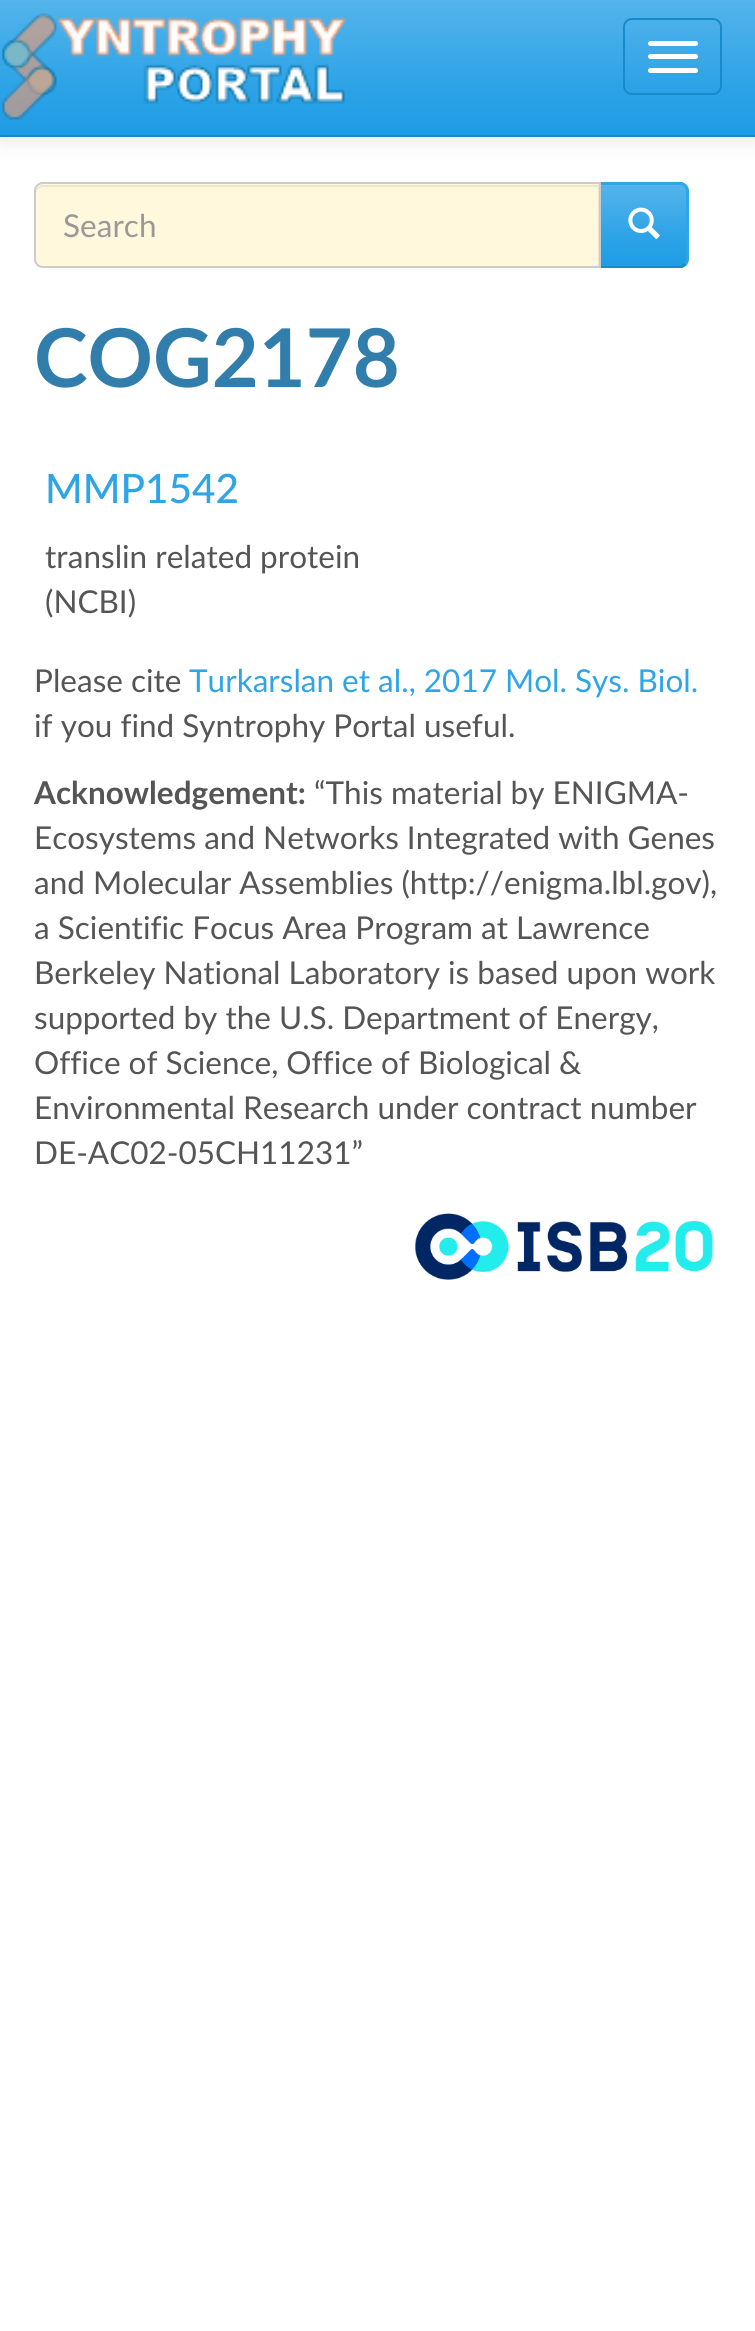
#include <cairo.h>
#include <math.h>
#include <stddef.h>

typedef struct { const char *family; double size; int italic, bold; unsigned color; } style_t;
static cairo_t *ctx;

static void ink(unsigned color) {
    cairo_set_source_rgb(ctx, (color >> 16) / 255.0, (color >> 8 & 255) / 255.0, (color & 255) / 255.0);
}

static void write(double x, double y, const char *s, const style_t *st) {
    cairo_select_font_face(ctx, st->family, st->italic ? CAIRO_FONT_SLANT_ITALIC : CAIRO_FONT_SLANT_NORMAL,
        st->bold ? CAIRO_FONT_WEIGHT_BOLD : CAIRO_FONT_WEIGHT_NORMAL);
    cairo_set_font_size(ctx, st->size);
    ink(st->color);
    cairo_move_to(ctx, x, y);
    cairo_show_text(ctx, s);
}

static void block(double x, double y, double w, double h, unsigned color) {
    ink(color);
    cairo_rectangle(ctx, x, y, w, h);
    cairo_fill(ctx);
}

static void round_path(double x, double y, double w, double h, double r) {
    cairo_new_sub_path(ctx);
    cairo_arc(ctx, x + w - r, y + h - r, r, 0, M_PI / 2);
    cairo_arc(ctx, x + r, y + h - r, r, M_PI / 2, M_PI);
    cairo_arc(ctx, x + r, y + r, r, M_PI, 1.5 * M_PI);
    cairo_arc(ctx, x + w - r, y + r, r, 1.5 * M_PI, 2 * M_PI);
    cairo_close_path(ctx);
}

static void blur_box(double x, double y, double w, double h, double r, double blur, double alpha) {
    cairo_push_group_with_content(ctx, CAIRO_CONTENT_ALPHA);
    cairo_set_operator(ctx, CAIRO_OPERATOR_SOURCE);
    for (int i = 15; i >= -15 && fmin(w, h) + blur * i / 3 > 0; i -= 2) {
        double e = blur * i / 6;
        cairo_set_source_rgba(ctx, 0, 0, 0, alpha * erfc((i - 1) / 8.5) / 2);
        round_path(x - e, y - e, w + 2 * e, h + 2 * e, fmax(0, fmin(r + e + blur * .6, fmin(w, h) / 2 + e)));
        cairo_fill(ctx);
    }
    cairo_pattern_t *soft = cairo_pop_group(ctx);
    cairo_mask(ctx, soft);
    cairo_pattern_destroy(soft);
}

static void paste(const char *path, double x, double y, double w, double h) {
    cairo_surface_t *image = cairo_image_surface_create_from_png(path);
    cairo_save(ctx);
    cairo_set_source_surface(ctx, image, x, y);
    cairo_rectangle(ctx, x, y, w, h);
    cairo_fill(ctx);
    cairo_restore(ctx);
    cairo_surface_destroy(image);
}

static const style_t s1 = {"Lato", 31.5, 0, 0, 0x999999};
static const style_t s2 = {"Lato", 81, 0, 1, 0x317eac};
static const style_t s3 = {"Lato Medium", 40.5, 0, 0, 0x2fa4e7};
static const style_t s4 = {"Lato", 31.5, 0, 0, 0x555555};
static const style_t s5 = {"Lato", 31.5, 0, 0, 0x2fa4e7};
static const style_t s6 = {"Lato", 31.5, 0, 1, 0x555555};

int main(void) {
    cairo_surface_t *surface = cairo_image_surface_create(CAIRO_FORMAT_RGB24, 755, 2331);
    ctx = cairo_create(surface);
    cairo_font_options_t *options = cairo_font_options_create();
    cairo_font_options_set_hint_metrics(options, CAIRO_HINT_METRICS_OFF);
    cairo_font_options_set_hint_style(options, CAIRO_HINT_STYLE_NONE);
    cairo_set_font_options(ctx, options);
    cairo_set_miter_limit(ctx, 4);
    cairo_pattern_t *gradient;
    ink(0xffffff);
    cairo_paint(ctx);
    ink(0x000000);
    blur_box(0, 2, 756, 138, 0, 11, 0.1);
    gradient = cairo_pattern_create_linear(378, 0, 378, 135);
    cairo_pattern_add_color_stop_rgba(gradient, 0, 0.329, 0.706, 0.922, 1);
    cairo_pattern_add_color_stop_rgba(gradient, 0.6, 0.184, 0.643, 0.906, 1);
    cairo_pattern_add_color_stop_rgba(gradient, 1, 0.114, 0.612, 0.898, 1);
    cairo_set_source(ctx, gradient);
    cairo_pattern_destroy(gradient);
    cairo_rectangle(ctx, 0, 0, 755, 135);
    cairo_fill(ctx);
    block(0, 135, 755, 2, 0x178acc);
    paste("pic1.png", 1, 13, 346, 107);
    round_path(624, 19, 97, 75, 8);
    cairo_stroke(ctx);
    ink(0xffffff);
    round_path(648, 41, 50, 5, 2.5);
    cairo_fill(ctx);
    round_path(648, 54, 50, 5, 2.5);
    cairo_fill(ctx);
    round_path(648, 68, 50, 5, 2.5);
    cairo_fill(ctx);
    ink(0x2fa4e7);
    cairo_new_path(ctx);
    cairo_move_to(ctx, 599, 182);
    cairo_line_to(ctx, 680, 182);
    cairo_curve_to(ctx, 685, 182, 689, 186, 689, 191);
    cairo_line_to(ctx, 689, 259);
    cairo_curve_to(ctx, 689, 264, 685, 268, 680, 268);
    cairo_line_to(ctx, 599, 268);
    cairo_close_path(ctx);
    cairo_fill(ctx);
    gradient = cairo_pattern_create_linear(644, 185, 644, 266);
    cairo_pattern_add_color_stop_rgba(gradient, 0, 0.329, 0.706, 0.922, 1);
    cairo_pattern_add_color_stop_rgba(gradient, 0.6, 0.184, 0.643, 0.906, 1);
    cairo_pattern_add_color_stop_rgba(gradient, 1, 0.114, 0.612, 0.898, 1);
    cairo_set_source(ctx, gradient);
    cairo_pattern_destroy(gradient);
    cairo_rectangle(ctx, 601, 185, 85, 81);
    cairo_fill(ctx);
    ink(0x2fa4e7);
    cairo_new_path(ctx);
    cairo_move_to(ctx, 601, 184);
    cairo_line_to(ctx, 601, 185);
    cairo_line_to(ctx, 598, 182);
    cairo_line_to(ctx, 682, 182);
    cairo_curve_to(ctx, 683, 183, 685, 184, 686, 185);
    cairo_line_to(ctx, 684, 187);
    cairo_curve_to(ctx, 683, 185, 682, 184, 680, 184);
    cairo_close_path(ctx);
    cairo_fill(ctx);
    cairo_new_path(ctx);
    cairo_move_to(ctx, 686, 185);
    cairo_curve_to(ctx, 687, 187, 688, 189, 688, 191);
    cairo_line_to(ctx, 688, 259);
    cairo_curve_to(ctx, 688, 261, 687, 263, 686, 265);
    cairo_line_to(ctx, 684, 263);
    cairo_curve_to(ctx, 685, 262, 686, 260, 686, 259);
    cairo_line_to(ctx, 686, 191);
    cairo_curve_to(ctx, 686, 190, 685, 188, 684, 187);
    cairo_close_path(ctx);
    cairo_fill(ctx);
    ink(0x178acc);
    cairo_new_path(ctx);
    cairo_move_to(ctx, 686, 265);
    cairo_curve_to(ctx, 685, 266, 683, 267, 682, 268);
    cairo_line_to(ctx, 598, 268);
    cairo_line_to(ctx, 601, 265);
    cairo_line_to(ctx, 601, 266);
    cairo_line_to(ctx, 680, 266);
    cairo_curve_to(ctx, 682, 266, 683, 265, 684, 263);
    cairo_close_path(ctx);
    cairo_fill(ctx);
    ink(0xfff8dc);
    cairo_new_path(ctx);
    cairo_move_to(ctx, 43, 182);
    cairo_line_to(ctx, 601, 182);
    cairo_line_to(ctx, 601, 268);
    cairo_line_to(ctx, 43, 268);
    cairo_curve_to(ctx, 38, 268, 34, 264, 34, 259);
    cairo_line_to(ctx, 34, 191);
    cairo_curve_to(ctx, 34, 186, 38, 182, 43, 182);
    cairo_close_path(ctx);
    cairo_fill(ctx);
    ink(0xece5cc);
    cairo_new_path(ctx);
    cairo_move_to(ctx, 43, 187);
    cairo_line_to(ctx, 598, 187);
    cairo_line_to(ctx, 598, 266);
    cairo_line_to(ctx, 599, 266);
    cairo_line_to(ctx, 599, 185);
    cairo_line_to(ctx, 43, 185);
    cairo_curve_to(ctx, 39, 185, 36, 188, 36, 192);
    cairo_line_to(ctx, 36, 194);
    cairo_curve_to(ctx, 36, 190, 39, 187, 43, 187);
    cairo_close_path(ctx);
    cairo_fill(ctx);
    cairo_new_path(ctx);
    cairo_move_to(ctx, 43, 183);
    cairo_line_to(ctx, 600, 183);
    cairo_line_to(ctx, 600, 267);
    cairo_line_to(ctx, 43, 267);
    cairo_curve_to(ctx, 38.5, 267, 35, 263.5, 35, 259);
    cairo_line_to(ctx, 35, 191);
    cairo_curve_to(ctx, 35, 186.5, 38.5, 183, 43, 183);
    cairo_close_path(ctx);
    ink(0xcccccc);
    cairo_stroke(ctx);
    write(63, 237, "Search", &s1);
    paste("pic2.png", 628, 207, 32, 32);
    write(34, 387, "COG2178", &s2);
    write(45, 503, "MMP1542", &s3);
    write(45, 568, "translin related protein", &s4);
    write(45, 613, "(NCBI)", &s4);
    write(34, 692, "Please cite", &s4);
    write(189, 692, "Turkarslan et al., 2017 Mol. Sys. Biol.", &s5);
    write(34, 737, "if you find Syntrophy Portal useful.", &s4);
    write(34, 804, "Acknowledgement:", &s6);
    write(314, 804, "“This material by ENIGMA-", &s4);
    write(34, 849, "Ecosystems and Networks Integrated with Genes", &s4);
    write(34, 894, "and Molecular Assemblies (http://enigma.lbl.gov),", &s4);
    write(34, 939, "a Scientific Focus Area Program at Lawrence", &s4);
    write(34, 984, "Berkeley National Laboratory is based upon work", &s4);
    write(34, 1029, "supported by the U.S. Department of Energy,", &s4);
    write(34, 1074, "Office of Science, Office of Biological &", &s4);
    write(34, 1119, "Environmental Research under contract number", &s4);
    write(34, 1164, "DE-AC02-05CH11231”", &s4);
    paste("pic3.png", 415, 1213, 298, 67);
    cairo_surface_write_to_png(surface, "screenshot.png");
    cairo_font_options_destroy(options);
    cairo_destroy(ctx);
    cairo_surface_destroy(surface);
    return 0;
}
